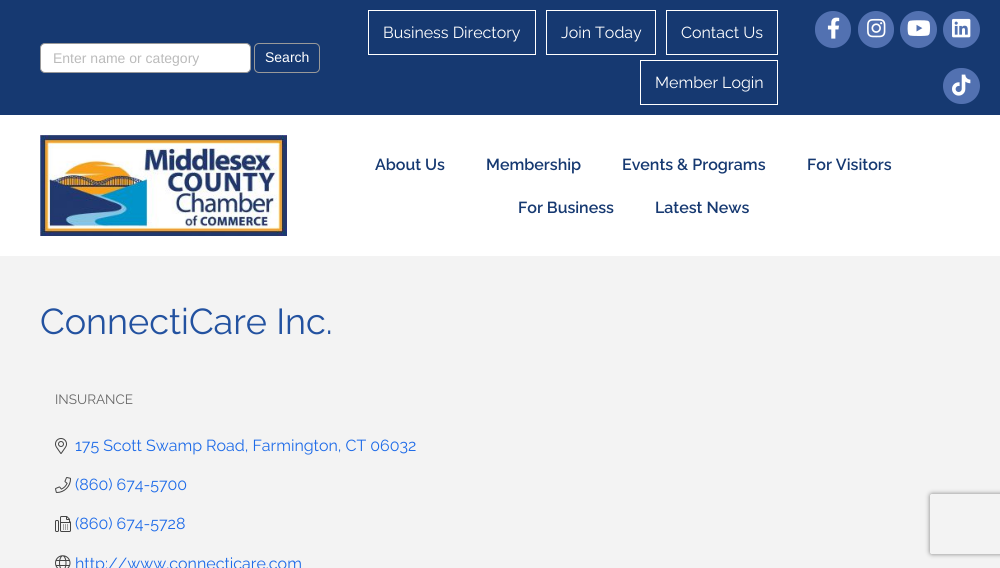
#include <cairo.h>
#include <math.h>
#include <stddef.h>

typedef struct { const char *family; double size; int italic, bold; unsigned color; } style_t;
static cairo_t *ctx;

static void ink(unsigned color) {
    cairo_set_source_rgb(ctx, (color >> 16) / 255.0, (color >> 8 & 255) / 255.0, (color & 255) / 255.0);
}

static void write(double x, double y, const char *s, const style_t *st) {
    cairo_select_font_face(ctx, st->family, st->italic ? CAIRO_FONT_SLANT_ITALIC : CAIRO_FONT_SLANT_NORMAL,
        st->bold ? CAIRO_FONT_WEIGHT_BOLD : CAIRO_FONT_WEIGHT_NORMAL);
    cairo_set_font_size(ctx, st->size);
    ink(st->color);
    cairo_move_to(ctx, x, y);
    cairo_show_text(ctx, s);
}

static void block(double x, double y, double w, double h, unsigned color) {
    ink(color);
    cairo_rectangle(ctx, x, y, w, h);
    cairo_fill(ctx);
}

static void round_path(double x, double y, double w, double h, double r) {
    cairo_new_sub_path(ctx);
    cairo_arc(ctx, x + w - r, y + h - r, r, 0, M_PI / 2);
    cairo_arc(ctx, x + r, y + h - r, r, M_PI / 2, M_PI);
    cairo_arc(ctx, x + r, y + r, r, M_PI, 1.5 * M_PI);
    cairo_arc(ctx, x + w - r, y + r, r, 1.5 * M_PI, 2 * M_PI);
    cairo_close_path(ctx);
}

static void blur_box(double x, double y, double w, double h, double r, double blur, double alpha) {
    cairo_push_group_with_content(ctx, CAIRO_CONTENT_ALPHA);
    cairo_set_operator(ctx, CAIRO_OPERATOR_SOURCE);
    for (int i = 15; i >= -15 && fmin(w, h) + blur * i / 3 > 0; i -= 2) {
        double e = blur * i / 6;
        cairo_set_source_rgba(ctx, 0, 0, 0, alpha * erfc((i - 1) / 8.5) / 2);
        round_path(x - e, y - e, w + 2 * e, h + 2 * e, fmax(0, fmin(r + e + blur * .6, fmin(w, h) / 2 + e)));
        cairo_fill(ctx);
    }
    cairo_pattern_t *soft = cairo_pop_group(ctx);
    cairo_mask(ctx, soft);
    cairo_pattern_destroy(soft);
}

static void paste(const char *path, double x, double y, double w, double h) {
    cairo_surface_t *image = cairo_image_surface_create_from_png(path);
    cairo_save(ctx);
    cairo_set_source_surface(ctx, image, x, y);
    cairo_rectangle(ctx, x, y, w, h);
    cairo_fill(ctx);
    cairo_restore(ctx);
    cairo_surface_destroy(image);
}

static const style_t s1 = {"Liberation Sans", 14, 0, 0, 0xbbbbbb};
static const style_t s2 = {"Liberation Sans", 14, 0, 0, 0xffffff};
static const style_t s3 = {"Raleway", 16, 0, 0, 0xffffff};
static const style_t s4 = {"Raleway SemiBold", 16, 0, 0, 0x163971};
static const style_t s5 = {"Raleway", 36, 0, 0, 0x2352a0};
static const style_t s6 = {"Raleway", 13.5, 0, 0, 0x676767};
static const style_t s7 = {"Raleway", 16, 0, 0, 0x1e6be8};

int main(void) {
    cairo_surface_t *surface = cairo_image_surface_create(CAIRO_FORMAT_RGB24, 1000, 568);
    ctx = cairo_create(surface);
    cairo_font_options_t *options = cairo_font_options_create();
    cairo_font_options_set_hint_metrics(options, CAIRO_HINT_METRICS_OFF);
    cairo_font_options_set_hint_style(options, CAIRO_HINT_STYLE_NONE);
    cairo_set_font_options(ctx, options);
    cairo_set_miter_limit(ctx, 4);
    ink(0xffffff);
    cairo_paint(ctx);
    block(0, 0, 1000, 115, 0x163971);
    ink(0xffffff);
    round_path(40.5, 43.5, 210, 29, 4.5);
    cairo_fill_preserve(ctx);
    ink(0x999999);
    cairo_set_line_width(ctx, 1);
    cairo_stroke(ctx);
    write(53, 63, "Enter name or category", &s1);
    round_path(254.5, 43.5, 65, 29, 4.5);
    ink(0x999999);
    cairo_stroke(ctx);
    write(265, 62, "Search", &s2);
    cairo_rectangle(ctx, 368.5, 10.5, 167, 44);
    cairo_stroke(ctx);
    write(383, 38, "Business Directory", &s3);
    cairo_rectangle(ctx, 546.5, 10.5, 109, 44);
    cairo_stroke(ctx);
    write(561, 38, "Join Today", &s3);
    cairo_rectangle(ctx, 666.5, 10.5, 111, 44);
    cairo_stroke(ctx);
    write(681, 38, "Contact Us", &s3);
    cairo_rectangle(ctx, 640.5, 60.5, 137, 44);
    cairo_stroke(ctx);
    write(655, 88, "Member Login", &s3);
    ink(0x5271b1);
    round_path(815, 11, 36, 37, 18);
    cairo_fill(ctx);
    paste("pic1.png", 827, 17, 13, 22);
    round_path(858, 11, 36, 37, 18);
    cairo_fill(ctx);
    paste("pic2.png", 867, 18, 19, 20);
    cairo_arc(ctx, 918.5, 29.5, 18.5, 0, 2 * M_PI);
    cairo_fill(ctx);
    paste("pic3.png", 907, 20, 23, 16);
    cairo_arc(ctx, 961.5, 29.5, 18.5, 0, 2 * M_PI);
    cairo_fill(ctx);
    paste("pic4.png", 952, 18, 19, 20);
    round_path(943, 68, 37, 36, 18);
    cairo_fill(ctx);
    paste("pic5.png", 952, 74, 19, 22);
    paste("pic6.png", 40, 135, 247, 101);
    write(375, 170, "About Us", &s4);
    write(486, 170, "Membership", &s4);
    write(622, 170, "Events & Programs", &s4);
    write(807, 170, "For Visitors", &s4);
    write(518, 213, "For Business", &s4);
    write(655, 213, "Latest News", &s4);
    block(0, 256, 1000, 312, 0xf3f3f3);
    write(40, 334, "ConnectiCare Inc.", &s5);
    write(55, 404, "INSURANCE", &s6);
    paste("pic7.png", 55, 438, 12, 16);
    write(75, 451, "175 Scott Swamp Road, Farmington, CT 06032", &s7);
    paste("pic8.png", 55, 477, 16, 16);
    write(75, 490, "(860) 674-5700", &s7);
    paste("pic9.png", 55, 516, 16, 16);
    write(75, 529, "(860) 674-5728", &s7);
    paste("pic10.png", 55, 555, 16, 13);
    write(75, 569, "http://www.connecticare.com", &s7);
    cairo_save(ctx);
    cairo_set_fill_rule(ctx, CAIRO_FILL_RULE_EVEN_ODD);
    cairo_new_path(ctx);
    cairo_move_to(ctx, 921, 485);
    cairo_line_to(ctx, 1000, 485);
    cairo_line_to(ctx, 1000, 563);
    cairo_line_to(ctx, 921, 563);
    cairo_close_path(ctx);
    cairo_move_to(ctx, 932, 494);
    cairo_line_to(ctx, 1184, 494);
    cairo_curve_to(ctx, 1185, 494, 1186, 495, 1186, 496);
    cairo_line_to(ctx, 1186, 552);
    cairo_curve_to(ctx, 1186, 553, 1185, 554, 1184, 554);
    cairo_line_to(ctx, 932, 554);
    cairo_curve_to(ctx, 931, 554, 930, 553, 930, 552);
    cairo_line_to(ctx, 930, 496);
    cairo_curve_to(ctx, 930, 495, 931, 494, 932, 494);
    cairo_close_path(ctx);
    cairo_clip(ctx);
    ink(0x808080);
    blur_box(930, 494, 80, 60, 2, 2.5, 1);
    cairo_restore(ctx);
    cairo_surface_write_to_png(surface, "screenshot.png");
    cairo_font_options_destroy(options);
    cairo_destroy(ctx);
    cairo_surface_destroy(surface);
    return 0;
}
